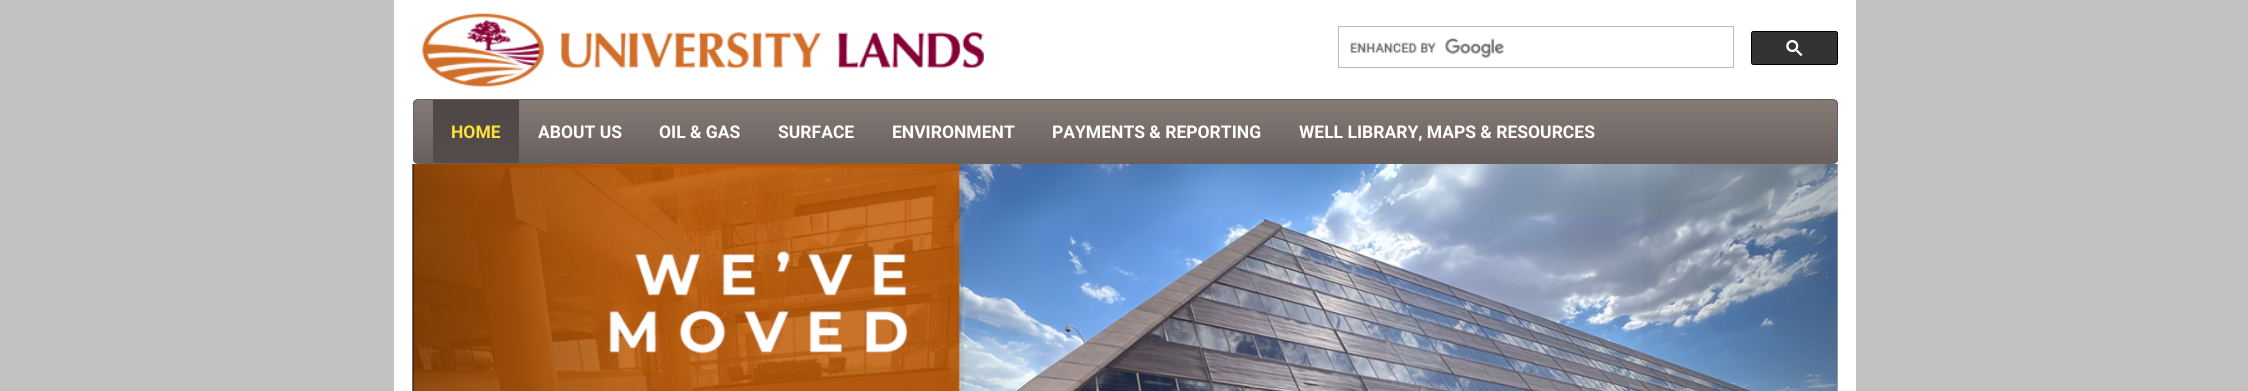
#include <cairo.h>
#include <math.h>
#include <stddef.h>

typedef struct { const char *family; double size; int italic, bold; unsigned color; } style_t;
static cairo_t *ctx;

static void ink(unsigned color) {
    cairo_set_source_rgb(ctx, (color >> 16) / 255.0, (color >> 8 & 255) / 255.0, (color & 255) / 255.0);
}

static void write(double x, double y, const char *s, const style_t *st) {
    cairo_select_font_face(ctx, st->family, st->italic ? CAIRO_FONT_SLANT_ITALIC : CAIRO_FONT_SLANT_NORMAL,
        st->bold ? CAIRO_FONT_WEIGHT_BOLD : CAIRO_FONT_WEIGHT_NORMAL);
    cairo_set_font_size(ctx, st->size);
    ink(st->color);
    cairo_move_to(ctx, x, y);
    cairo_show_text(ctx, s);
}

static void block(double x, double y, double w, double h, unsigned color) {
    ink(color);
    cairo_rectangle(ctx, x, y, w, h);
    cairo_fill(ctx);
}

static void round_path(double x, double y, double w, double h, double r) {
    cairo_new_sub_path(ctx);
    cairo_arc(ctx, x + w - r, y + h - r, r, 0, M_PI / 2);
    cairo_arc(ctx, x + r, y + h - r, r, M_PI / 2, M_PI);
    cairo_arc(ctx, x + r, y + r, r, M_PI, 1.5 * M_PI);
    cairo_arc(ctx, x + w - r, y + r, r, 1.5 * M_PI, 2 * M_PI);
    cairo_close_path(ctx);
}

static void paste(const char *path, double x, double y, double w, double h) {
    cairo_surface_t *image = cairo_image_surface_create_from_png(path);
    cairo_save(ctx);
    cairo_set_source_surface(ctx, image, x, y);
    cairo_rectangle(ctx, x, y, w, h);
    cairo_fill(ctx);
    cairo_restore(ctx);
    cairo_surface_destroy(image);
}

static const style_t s1 = {"Roboto", 17.5, 0, 1, 0xfee337};
static const style_t s2 = {"Roboto", 17.5, 0, 1, 0xffffff};

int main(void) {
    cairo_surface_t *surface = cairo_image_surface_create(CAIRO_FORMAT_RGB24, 2248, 391);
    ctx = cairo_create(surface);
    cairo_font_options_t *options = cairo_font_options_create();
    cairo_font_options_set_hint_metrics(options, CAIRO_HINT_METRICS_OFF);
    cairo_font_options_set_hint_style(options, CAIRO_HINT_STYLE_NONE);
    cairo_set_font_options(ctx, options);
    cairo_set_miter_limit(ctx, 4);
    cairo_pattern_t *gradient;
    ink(0xc2c2c2);
    cairo_paint(ctx);
    block(394, 0, 1462, 391, 0xffffff);
    paste("pic1.png", 422, 13, 562, 74);
    cairo_rectangle(ctx, 1338.5, 26.5, 395, 41);
    ink(0xbbbbbb);
    cairo_set_line_width(ctx, 1);
    cairo_stroke(ctx);
    paste("pic2.png", 1350, 38, 154, 20);
    ink(0x333333);
    round_path(1751.5, 31.5, 86, 33, 2);
    cairo_fill_preserve(ctx);
    ink(0x000000);
    cairo_stroke(ctx);
    paste("pic3.png", 1786, 40, 17, 16);
    cairo_save(ctx);
    round_path(413, 99, 1425, 65, 5);
    cairo_clip(ctx);
    gradient = cairo_pattern_create_linear(1125, 100, 1125, 163);
    cairo_pattern_add_color_stop_rgba(gradient, 0, 0.518, 0.475, 0.459, 1);
    cairo_pattern_add_color_stop_rgba(gradient, 1, 0.412, 0.376, 0.365, 1);
    cairo_set_source(ctx, gradient);
    cairo_pattern_destroy(gradient);
    cairo_rectangle(ctx, 413, 100, 1425, 63);
    cairo_fill(ctx);
    cairo_restore(ctx);
    round_path(413.5, 99.5, 1424, 64, 4.5);
    ink(0x69605d);
    cairo_stroke(ctx);
    gradient = cairo_pattern_create_linear(476, 100, 476, 163);
    cairo_pattern_add_color_stop_rgba(gradient, 0, 0.306, 0.278, 0.271, 1);
    cairo_pattern_add_color_stop_rgba(gradient, 1, 0.333, 0.302, 0.294, 1);
    cairo_set_source(ctx, gradient);
    cairo_pattern_destroy(gradient);
    cairo_rectangle(ctx, 433, 100, 86, 63);
    cairo_fill(ctx);
    write(451, 138, "HOME", &s1);
    write(538, 138, "ABOUT US", &s2);
    write(659, 138, "OIL & GAS", &s2);
    write(778, 138, "SURFACE", &s2);
    write(892, 138, "ENVIRONMENT", &s2);
    write(1052, 138, "PAYMENTS & REPORTING", &s2);
    write(1299, 138, "WELL LIBRARY, MAPS & RESOURCES", &s2);
    paste("pic4.png", 412, 164, 1426, 227);
    gradient = cairo_pattern_create_linear(1624, 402, 1838, 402);
    cairo_pattern_add_color_stop_rgba(gradient, 0, 0, 0, 0, 0);
    cairo_pattern_add_color_stop_rgba(gradient, 1, 0, 0, 0, 0.25);
    cairo_set_source(ctx, gradient);
    cairo_pattern_destroy(gradient);
    cairo_rectangle(ctx, 1642, 164, 196, 227);
    cairo_fill(ctx);
    cairo_surface_write_to_png(surface, "screenshot.png");
    cairo_font_options_destroy(options);
    cairo_destroy(ctx);
    cairo_surface_destroy(surface);
    return 0;
}
